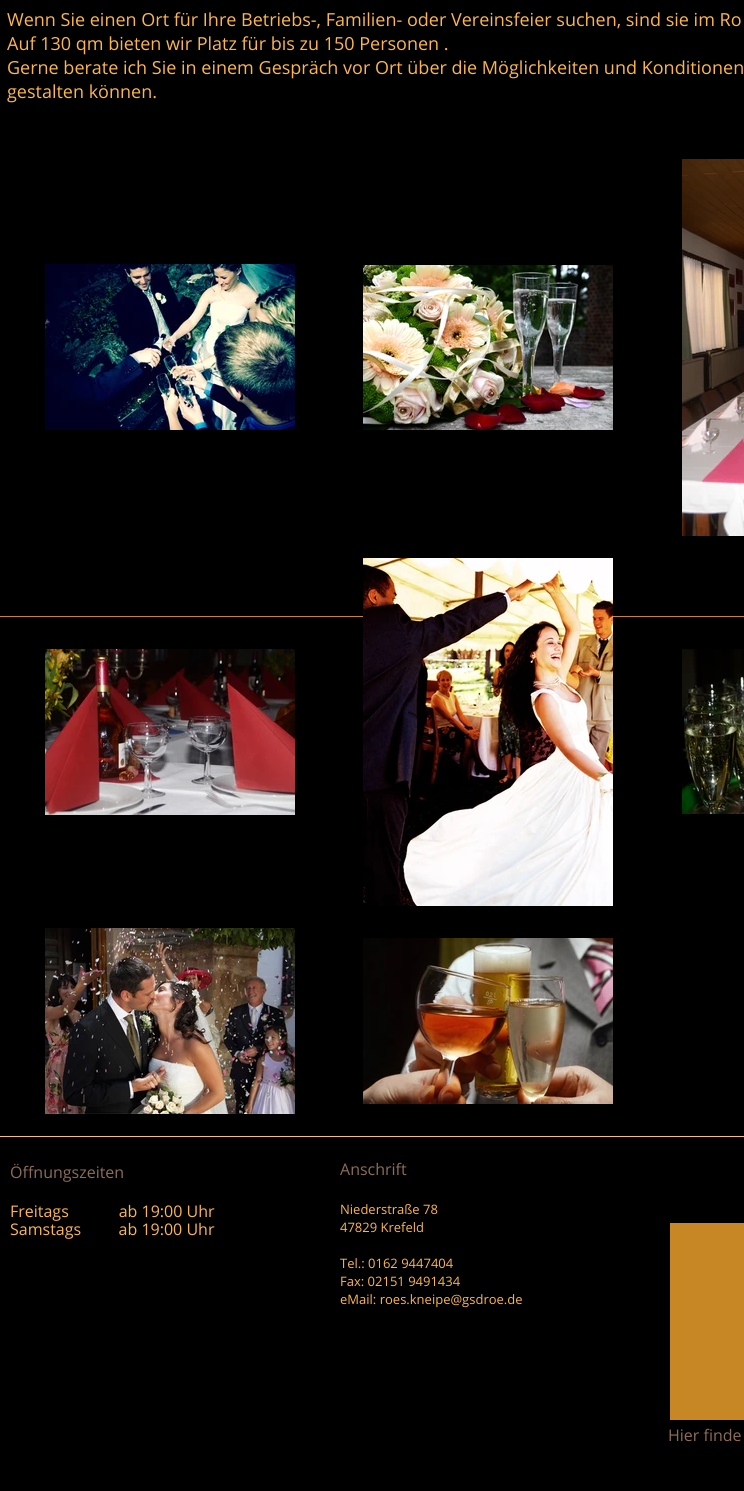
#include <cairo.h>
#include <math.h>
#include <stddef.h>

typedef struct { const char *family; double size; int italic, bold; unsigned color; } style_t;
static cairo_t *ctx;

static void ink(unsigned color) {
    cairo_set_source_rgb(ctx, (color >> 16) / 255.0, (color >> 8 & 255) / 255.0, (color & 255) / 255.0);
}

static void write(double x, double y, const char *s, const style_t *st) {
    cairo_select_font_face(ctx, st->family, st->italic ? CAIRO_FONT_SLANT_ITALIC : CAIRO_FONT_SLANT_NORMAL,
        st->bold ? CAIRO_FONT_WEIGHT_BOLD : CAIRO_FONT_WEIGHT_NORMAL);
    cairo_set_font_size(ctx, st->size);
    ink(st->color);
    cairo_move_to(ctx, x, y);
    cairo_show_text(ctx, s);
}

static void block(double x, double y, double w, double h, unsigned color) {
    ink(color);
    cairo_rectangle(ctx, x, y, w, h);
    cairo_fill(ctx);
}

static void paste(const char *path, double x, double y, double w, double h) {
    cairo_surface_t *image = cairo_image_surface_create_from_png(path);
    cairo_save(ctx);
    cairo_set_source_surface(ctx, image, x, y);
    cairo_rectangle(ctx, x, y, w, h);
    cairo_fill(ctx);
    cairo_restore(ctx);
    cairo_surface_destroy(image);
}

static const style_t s1 = {"Open Sans", 18, 0, 0, 0xfcb64c};
static const style_t s2 = {"Open Sans", 16, 0, 0, 0x8e6c57};
static const style_t s3 = {"Open Sans", 16, 0, 0, 0xfcb64c};
static const style_t s4 = {"Open Sans", 13, 0, 0, 0xfcb64c};

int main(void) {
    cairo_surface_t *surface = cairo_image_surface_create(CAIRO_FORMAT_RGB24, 744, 1491);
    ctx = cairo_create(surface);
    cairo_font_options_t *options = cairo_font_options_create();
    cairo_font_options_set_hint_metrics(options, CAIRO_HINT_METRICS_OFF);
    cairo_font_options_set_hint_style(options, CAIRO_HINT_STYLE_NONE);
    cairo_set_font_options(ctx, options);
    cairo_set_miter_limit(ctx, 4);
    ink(0x000000);
    cairo_paint(ctx);
    write(7, 26, "Wenn Sie einen Ort für Ihre Betriebs-, Familien- oder Vereinsfeier suchen, sind sie im Ro", &s1);
    write(7, 50, "Auf 130 qm bieten wir Platz für bis zu 150 Personen .", &s1);
    write(7, 74, "Gerne berate ich Sie in einem Gespräch vor Ort über die Möglichkeiten und Konditionen", &s1);
    write(7, 98, "gestalten können.", &s1);
    paste("pic1.png", 45, 264, 250, 166);
    paste("pic2.png", 363, 265, 250, 165);
    paste("pic3.png", 682, 159, 62, 377);
    paste("pic4.png", 45, 649, 250, 166);
    block(0, 616, 744, 1, 0xc78725);
    paste("pic5.png", 363, 558, 250, 348);
    paste("pic6.png", 682, 649, 62, 165);
    paste("pic7.png", 45, 928, 250, 186);
    paste("pic8.png", 363, 938, 250, 166);
    block(0, 1136, 744, 1, 0xfac16a);
    write(10, 1178, "Öffnungszeiten", &s2);
    write(10, 1217, "Freitags            ab 19:00 Uhr", &s3);
    write(10, 1235, "Samstags         ab 19:00 Uhr", &s3);
    write(340, 1175, "Anschrift", &s2);
    write(340, 1214, "Niederstraße 78", &s4);
    write(340, 1232, "47829 Krefeld", &s4);
    write(340, 1268, "Tel.: 0162 9447404", &s4);
    write(340, 1286, "Fax: 02151 9491434", &s4);
    write(340, 1304, "eMail: roes.kneipe@gsdroe.de", &s4);
    block(670, 1223, 74, 197, 0xc78725);
    write(668, 1441, "Hier finde", &s2);
    cairo_surface_write_to_png(surface, "screenshot.png");
    cairo_font_options_destroy(options);
    cairo_destroy(ctx);
    cairo_surface_destroy(surface);
    return 0;
}
